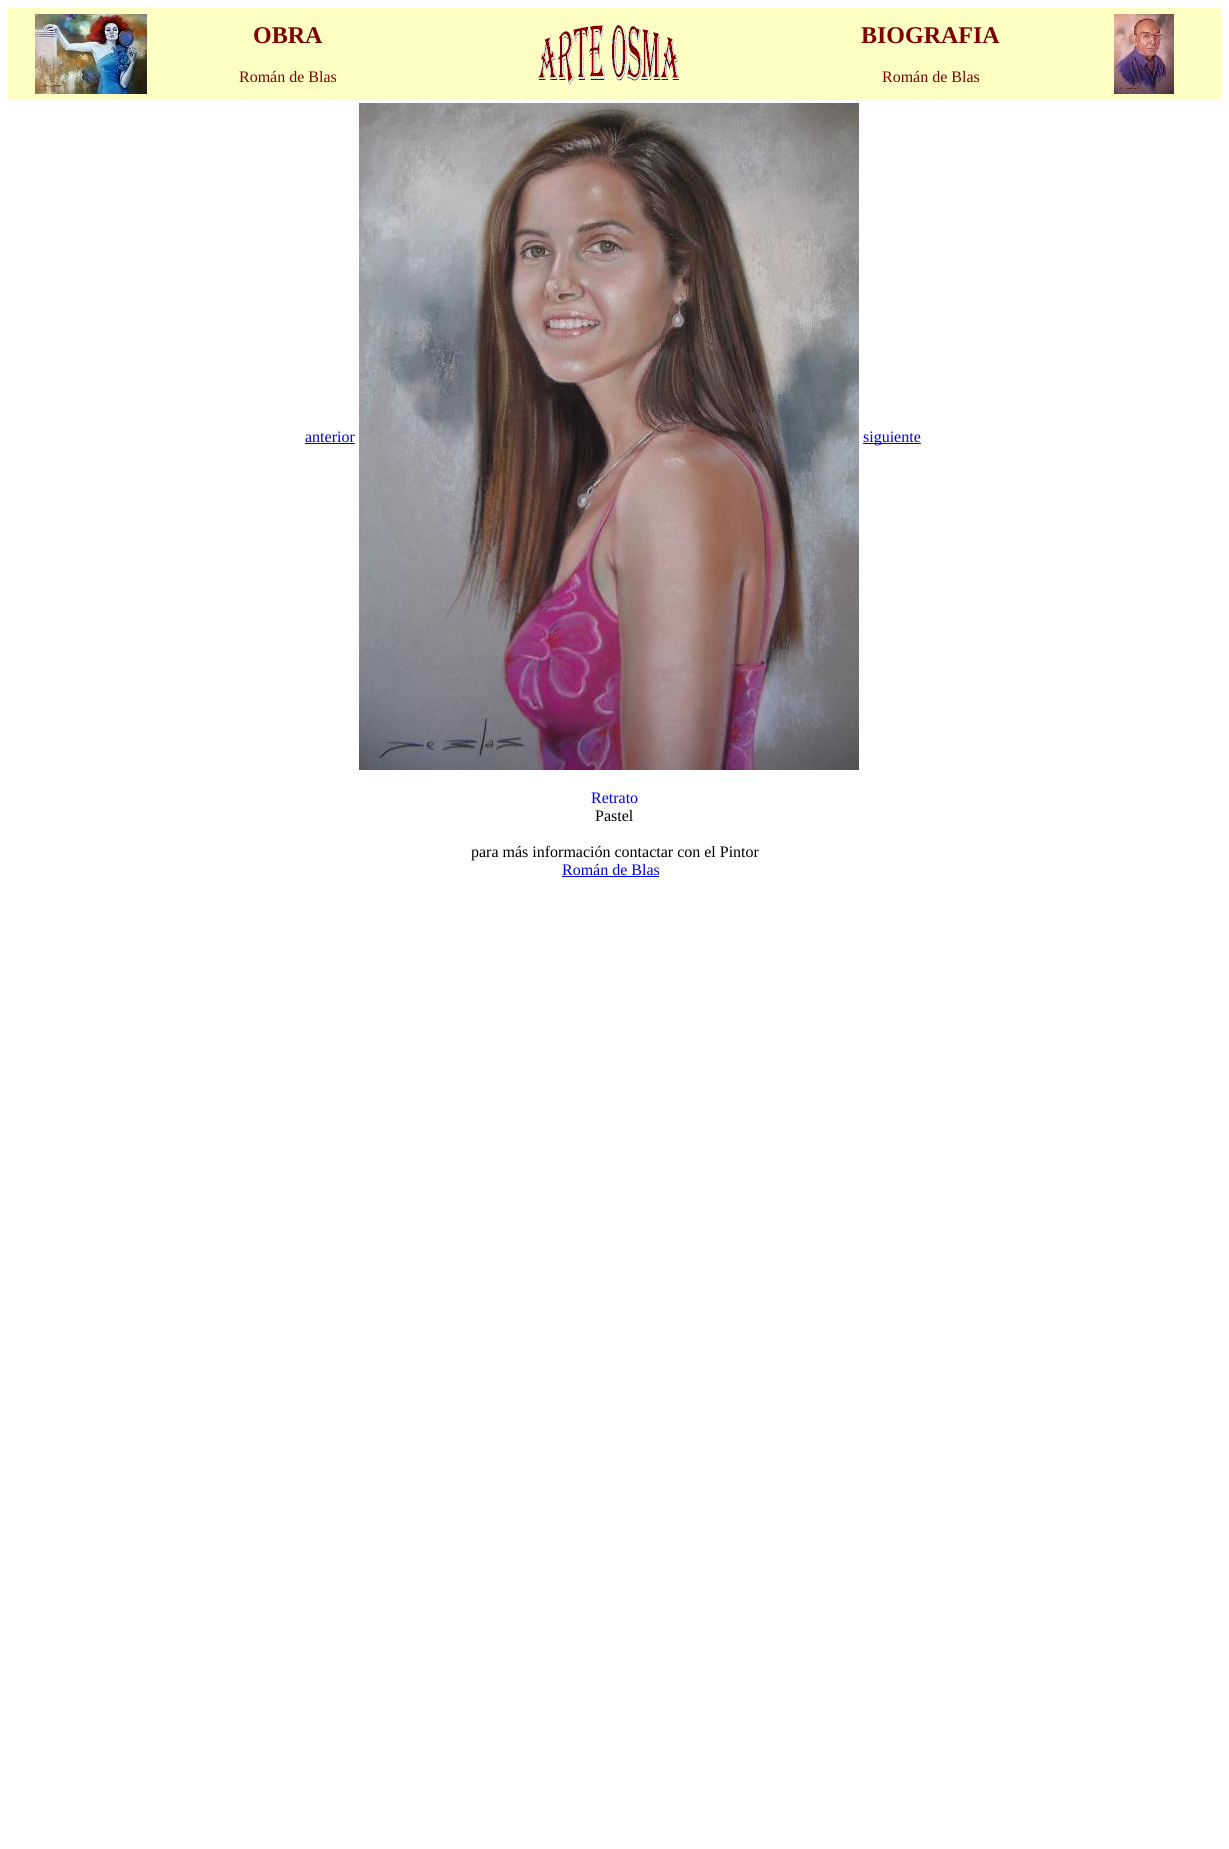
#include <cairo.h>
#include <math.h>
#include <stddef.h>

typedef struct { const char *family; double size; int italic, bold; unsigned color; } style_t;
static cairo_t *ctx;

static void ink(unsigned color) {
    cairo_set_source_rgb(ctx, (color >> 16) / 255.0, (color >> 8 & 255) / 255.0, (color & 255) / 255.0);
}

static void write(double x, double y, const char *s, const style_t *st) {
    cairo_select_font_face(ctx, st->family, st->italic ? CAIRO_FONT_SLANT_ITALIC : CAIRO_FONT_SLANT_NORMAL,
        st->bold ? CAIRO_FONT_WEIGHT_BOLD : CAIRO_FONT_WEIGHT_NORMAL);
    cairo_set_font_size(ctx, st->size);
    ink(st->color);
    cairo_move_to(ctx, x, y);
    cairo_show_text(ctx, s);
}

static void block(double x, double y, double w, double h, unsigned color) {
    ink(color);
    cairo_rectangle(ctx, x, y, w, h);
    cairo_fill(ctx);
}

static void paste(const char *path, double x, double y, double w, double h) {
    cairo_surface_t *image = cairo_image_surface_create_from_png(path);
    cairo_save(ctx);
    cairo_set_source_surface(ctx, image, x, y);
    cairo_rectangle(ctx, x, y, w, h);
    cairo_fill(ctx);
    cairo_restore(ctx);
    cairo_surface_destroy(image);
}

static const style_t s1 = {"Liberation Serif", 24, 0, 1, 0x800000};
static const style_t s2 = {"Liberation Serif", 16, 0, 0, 0x800000};
static const style_t s3 = {"Liberation Serif", 16, 0, 0, 0x0000ee};
static const style_t s4 = {"Liberation Serif", 16, 0, 0, 0x0000ff};
static const style_t s5 = {"Liberation Serif", 16, 0, 0, 0x000000};

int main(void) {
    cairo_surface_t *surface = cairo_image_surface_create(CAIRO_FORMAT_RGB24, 1229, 1849);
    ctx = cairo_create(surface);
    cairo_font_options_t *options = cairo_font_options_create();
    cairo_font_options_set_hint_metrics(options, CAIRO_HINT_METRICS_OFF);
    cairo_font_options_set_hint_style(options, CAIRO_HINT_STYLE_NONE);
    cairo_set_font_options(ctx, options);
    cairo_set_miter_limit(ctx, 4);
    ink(0xffffff);
    cairo_paint(ctx);
    block(8, 8, 1213, 92, 0xffffc4);
    paste("pic1.png", 35, 14, 112, 80);
    write(253, 43, "OBRA", &s1);
    write(239, 82, "Román de Blas", &s2);
    paste("pic2.png", 538, 25, 141, 60);
    write(861, 43, "BIOGRAFIA", &s1);
    write(882, 82, "Román de Blas", &s2);
    paste("pic3.png", 1114, 14, 60, 80);
    write(305, 442, "anterior", &s3);
    block(305, 443, 50, 1, 0x0000ee);
    paste("pic4.png", 359, 103, 500, 667);
    block(863, 443, 58, 1, 0x0000ee);
    write(863, 442, "siguiente", &s3);
    write(591, 803, "Retrato", &s4);
    write(595, 821, "Pastel", &s5);
    write(471, 857, "para más información contactar con el Pintor", &s5);
    write(562, 875, "Román de Blas", &s3);
    block(562, 876, 97, 1, 0x0000ee);
    cairo_surface_write_to_png(surface, "screenshot.png");
    cairo_font_options_destroy(options);
    cairo_destroy(ctx);
    cairo_surface_destroy(surface);
    return 0;
}
